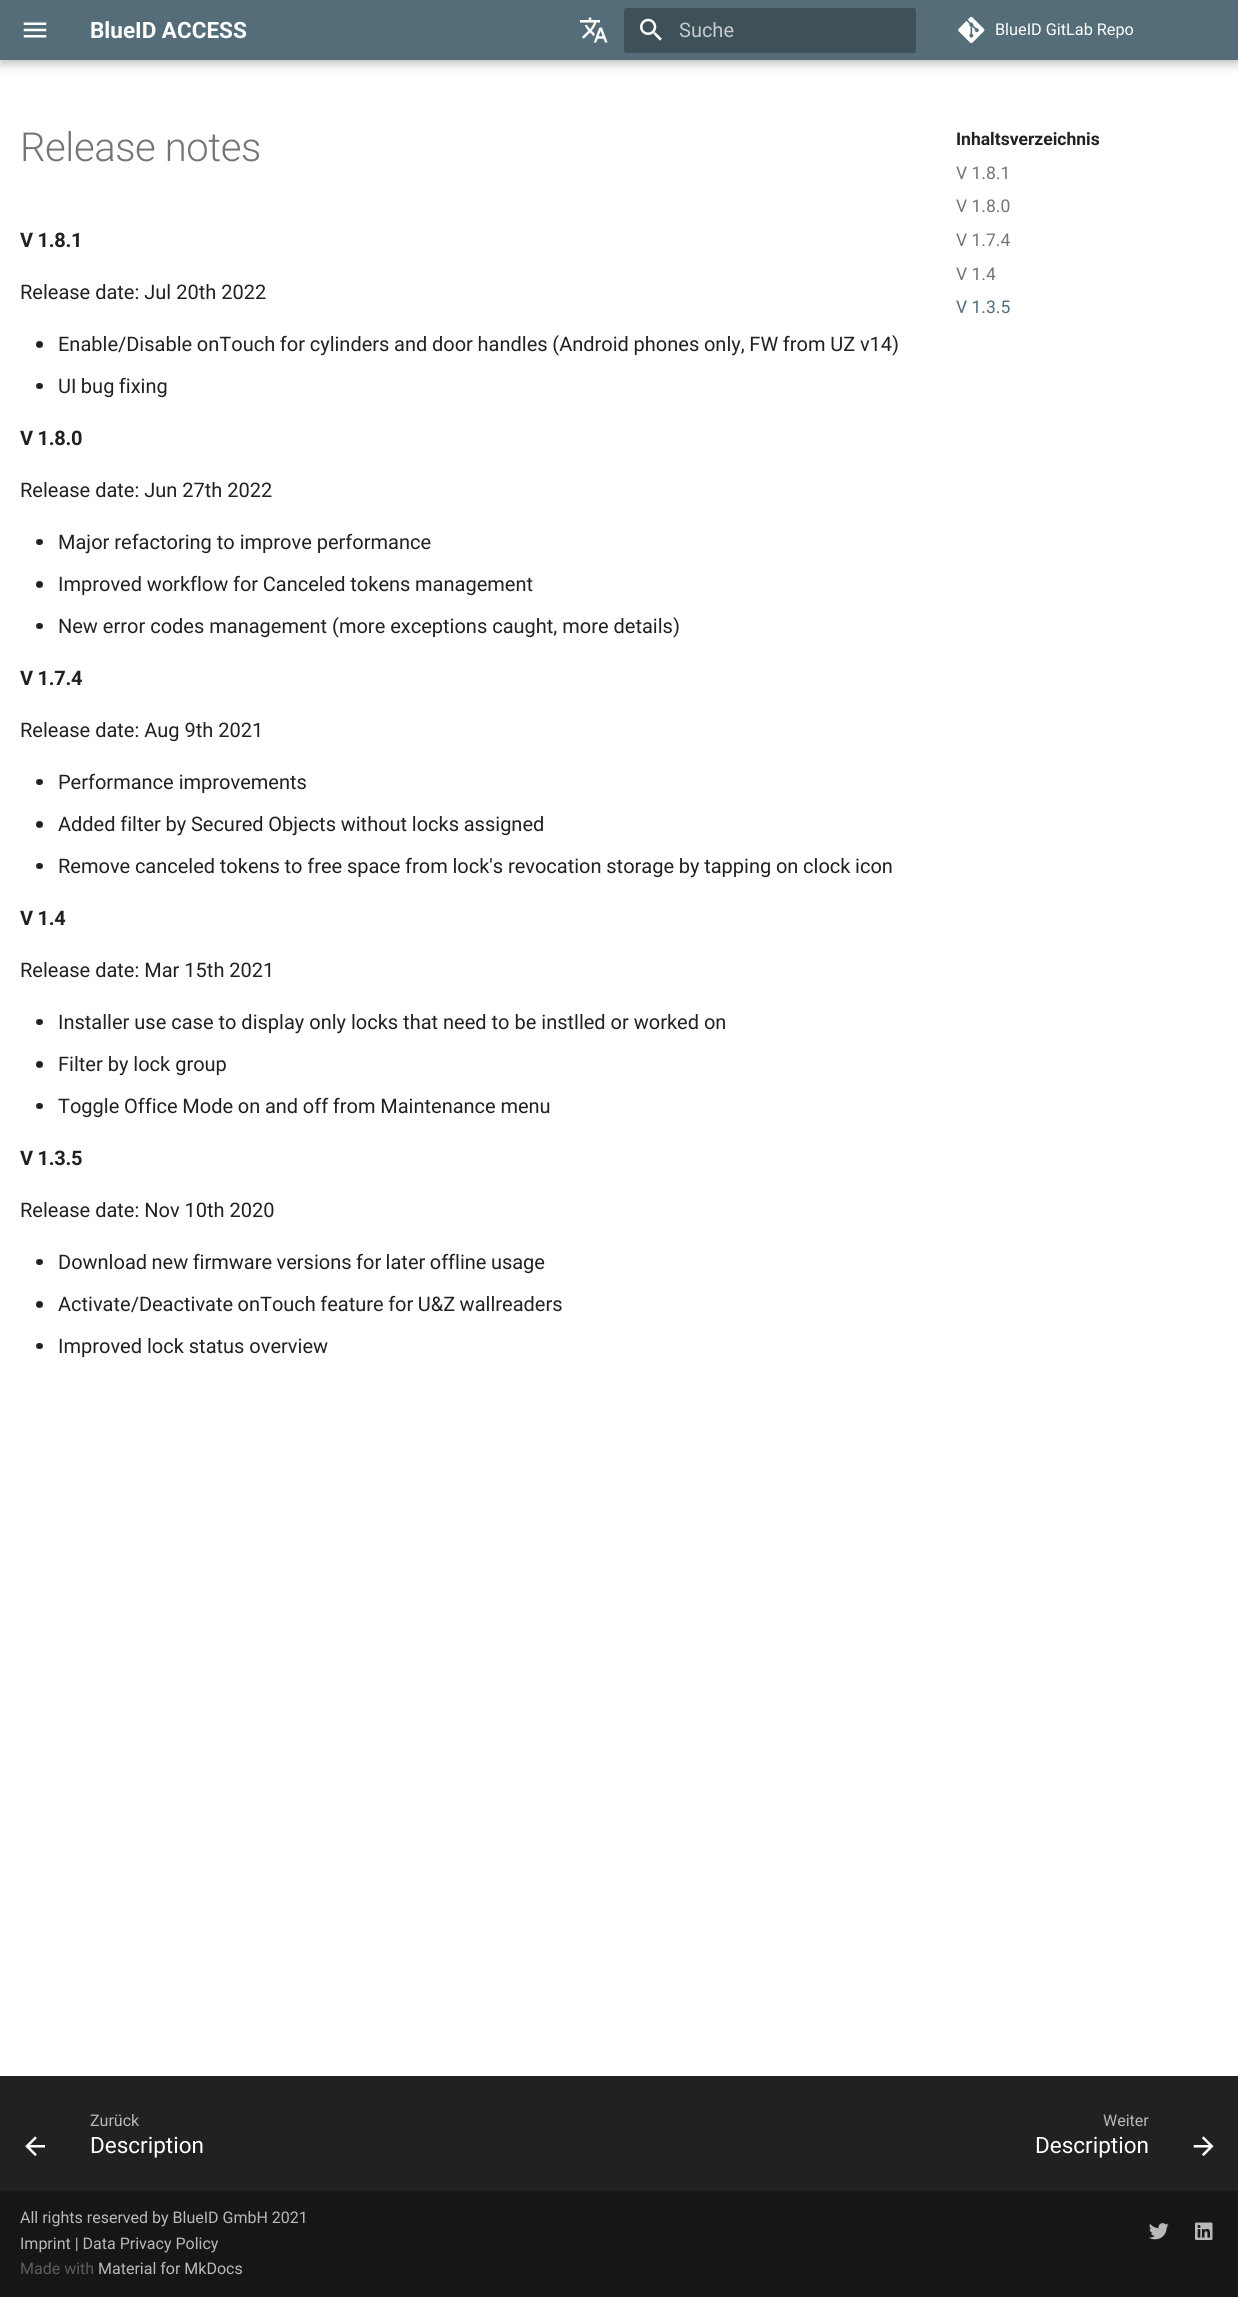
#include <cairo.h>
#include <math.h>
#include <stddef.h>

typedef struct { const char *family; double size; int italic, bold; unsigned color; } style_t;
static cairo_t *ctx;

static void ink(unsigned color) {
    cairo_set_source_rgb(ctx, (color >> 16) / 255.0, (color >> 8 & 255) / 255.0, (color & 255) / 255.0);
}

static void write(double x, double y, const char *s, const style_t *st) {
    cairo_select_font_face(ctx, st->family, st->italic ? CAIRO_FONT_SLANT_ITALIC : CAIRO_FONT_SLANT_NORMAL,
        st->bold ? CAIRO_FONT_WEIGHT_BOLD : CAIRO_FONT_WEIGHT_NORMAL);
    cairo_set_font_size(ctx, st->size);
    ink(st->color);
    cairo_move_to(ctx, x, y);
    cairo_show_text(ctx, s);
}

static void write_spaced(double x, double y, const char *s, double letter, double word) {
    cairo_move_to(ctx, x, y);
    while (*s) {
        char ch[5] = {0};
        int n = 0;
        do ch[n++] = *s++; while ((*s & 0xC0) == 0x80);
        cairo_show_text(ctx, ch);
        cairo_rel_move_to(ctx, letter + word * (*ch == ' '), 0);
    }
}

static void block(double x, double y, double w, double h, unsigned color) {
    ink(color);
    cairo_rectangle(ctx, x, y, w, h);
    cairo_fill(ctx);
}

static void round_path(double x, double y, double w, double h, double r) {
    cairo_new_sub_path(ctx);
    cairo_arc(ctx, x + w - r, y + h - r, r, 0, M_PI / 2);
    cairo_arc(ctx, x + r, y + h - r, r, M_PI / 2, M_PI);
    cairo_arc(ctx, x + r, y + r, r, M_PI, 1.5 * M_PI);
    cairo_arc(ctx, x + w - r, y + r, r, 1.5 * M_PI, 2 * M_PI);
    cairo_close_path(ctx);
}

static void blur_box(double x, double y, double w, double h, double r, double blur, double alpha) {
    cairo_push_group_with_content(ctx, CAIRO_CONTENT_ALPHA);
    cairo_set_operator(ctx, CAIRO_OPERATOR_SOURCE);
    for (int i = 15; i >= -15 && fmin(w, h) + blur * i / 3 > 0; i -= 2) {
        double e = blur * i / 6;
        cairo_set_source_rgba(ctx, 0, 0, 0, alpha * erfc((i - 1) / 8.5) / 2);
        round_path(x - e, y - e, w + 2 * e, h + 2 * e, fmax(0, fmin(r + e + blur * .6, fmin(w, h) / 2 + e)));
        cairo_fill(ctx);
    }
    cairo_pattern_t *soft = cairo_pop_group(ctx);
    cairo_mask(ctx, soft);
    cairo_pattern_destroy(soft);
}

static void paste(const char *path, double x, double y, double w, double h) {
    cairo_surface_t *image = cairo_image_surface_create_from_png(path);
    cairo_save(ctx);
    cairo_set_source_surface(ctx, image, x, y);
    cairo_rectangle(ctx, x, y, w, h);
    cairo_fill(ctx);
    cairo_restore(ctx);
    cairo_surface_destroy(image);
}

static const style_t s1 = {"Roboto", 22.5, 0, 1, 0xffffff};
static const style_t s2 = {"Roboto", 20, 0, 0, 0xc5cbcd};
static const style_t s3 = {"Roboto", 16.25, 0, 0, 0xffffff};
static const style_t s4 = {"Roboto", 20, 0, 0, 0x212121};
static const style_t s5 = {"Roboto", 17.5, 0, 1, 0x212121};
static const style_t s6 = {"Roboto", 17.5, 0, 0, 0x757575};
static const style_t s7 = {"Roboto", 17.5, 0, 0, 0x546d78};
static const style_t s8 = {"Roboto", 16, 0, 0, 0xb9b9b9};
static const style_t s9 = {"Roboto", 22.5, 0, 0, 0xffffff};
static const style_t s10 = {"Roboto", 16, 0, 0, 0x5c5c5c};

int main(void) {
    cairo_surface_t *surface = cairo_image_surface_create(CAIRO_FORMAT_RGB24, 1238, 2297);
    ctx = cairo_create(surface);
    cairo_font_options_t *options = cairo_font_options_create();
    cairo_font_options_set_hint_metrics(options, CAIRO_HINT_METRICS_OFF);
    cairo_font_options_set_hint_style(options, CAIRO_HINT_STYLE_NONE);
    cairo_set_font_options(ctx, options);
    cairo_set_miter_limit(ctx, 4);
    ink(0xffffff);
    cairo_paint(ctx);
    ink(0x000000);
    blur_box(0, 5, 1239, 60, 0, 5, 0.2);
    blur_box(0, 0, 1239, 60, 0, 2.5, 0.1);
    block(0, 0, 1238, 60, 0x546d78);
    paste("pic1.png", 23, 22, 24, 16);
    write(90, 38, "BlueID ACCESS", &s1);
    paste("pic2.png", 580, 17, 28, 26);
    ink(0x3e5159);
    round_path(624, 8, 292, 45, 2.5);
    cairo_fill(ctx);
    paste("pic3.png", 640, 18, 22, 23);
    write(679, 37, "Suche", &s2);
    paste("pic4.png", 958, 16, 27, 28);
    write(995, 35, "BlueID GitLab Repo", &s3);
    cairo_select_font_face(ctx, "Roboto Light", CAIRO_FONT_SLANT_NORMAL, CAIRO_FONT_WEIGHT_NORMAL);
    cairo_set_font_size(ctx, 40);
    ink(0x757575);
    write_spaced(20, 161, "Release notes", -0.4, 0);
    cairo_select_font_face(ctx, "Roboto", CAIRO_FONT_SLANT_NORMAL, CAIRO_FONT_WEIGHT_BOLD);
    cairo_set_font_size(ctx, 20);
    ink(0x212121);
    write_spaced(20, 247, "V 1.8.1", -0.25, 0);
    write(20, 299, "Release date: Jul 20th 2022", &s4);
    cairo_new_path(ctx);
    cairo_arc(ctx, 39.5, 344.5, 3.5, 0, 2 * M_PI);
    cairo_fill(ctx);
    write_spaced(58, 351, "Enable/Disable onTouch for cylinders and door handles (Android phones only, FW from UZ v14)", 0, -0.25);
    round_path(36, 383, 7, 6, 3);
    cairo_fill(ctx);
    write_spaced(58, 393, "UI bug fixing", 0, -0.5);
    cairo_select_font_face(ctx, "Roboto", CAIRO_FONT_SLANT_NORMAL, CAIRO_FONT_WEIGHT_BOLD);
    write_spaced(20, 445, "V 1.8.0", -0.25, 0);
    write(20, 497, "Release date: Jun 27th 2022", &s4);
    round_path(36, 539, 7, 6, 3);
    cairo_fill(ctx);
    write(58, 549, "Major refactoring to improve performance", &s4);
    cairo_new_path(ctx);
    cairo_arc(ctx, 39.5, 584.5, 3.5, 0, 2 * M_PI);
    cairo_fill(ctx);
    write_spaced(58, 591, "Improved workflow for Canceled tokens management", 0, -0.25);
    round_path(36, 623, 7, 6, 3);
    cairo_fill(ctx);
    write(58, 633, "New error codes management (more exceptions caught, more details)", &s4);
    cairo_select_font_face(ctx, "Roboto", CAIRO_FONT_SLANT_NORMAL, CAIRO_FONT_WEIGHT_BOLD);
    write_spaced(20, 685, "V 1.7.4", -0.25, 0);
    write(20, 737, "Release date: Aug 9th 2021", &s4);
    round_path(36, 779, 7, 6, 3);
    cairo_fill(ctx);
    write(58, 789, "Performance improvements", &s4);
    cairo_new_path(ctx);
    cairo_arc(ctx, 39.5, 824.5, 3.5, 0, 2 * M_PI);
    cairo_fill(ctx);
    write_spaced(58, 831, "Added filter by Secured Objects without locks assigned", 0, -0.25);
    round_path(36, 863, 7, 6, 3);
    cairo_fill(ctx);
    write_spaced(58, 873, "Remove canceled tokens to free space from lock's revocation storage by tapping on clock icon", 0, -0.25);
    cairo_select_font_face(ctx, "Roboto", CAIRO_FONT_SLANT_NORMAL, CAIRO_FONT_WEIGHT_BOLD);
    write_spaced(20, 925, "V 1.4", -0.25, 0);
    write(20, 977, "Release date: Mar 15th 2021", &s4);
    round_path(36, 1019, 7, 6, 3);
    cairo_fill(ctx);
    write(58, 1029, "Installer use case to display only locks that need to be instlled or worked on", &s4);
    cairo_new_path(ctx);
    cairo_arc(ctx, 39.5, 1064.5, 3.5, 0, 2 * M_PI);
    cairo_fill(ctx);
    write(58, 1071, "Filter by lock group", &s4);
    round_path(36, 1103, 7, 6, 3);
    cairo_fill(ctx);
    write_spaced(58, 1113, "Toggle Office Mode on and off from Maintenance menu", 0, -0.25);
    cairo_select_font_face(ctx, "Roboto", CAIRO_FONT_SLANT_NORMAL, CAIRO_FONT_WEIGHT_BOLD);
    write_spaced(20, 1165, "V 1.3.5", -0.25, 0);
    write(20, 1217, "Release date: Nov 10th 2020", &s4);
    round_path(36, 1259, 7, 6, 3);
    cairo_fill(ctx);
    write_spaced(58, 1269, "Download new firmware versions for later offline usage", 0, -0.5);
    cairo_new_path(ctx);
    cairo_arc(ctx, 39.5, 1304.5, 3.5, 0, 2 * M_PI);
    cairo_fill(ctx);
    write_spaced(58, 1311, "Activate/Deactivate onTouch feature for U&Z wallreaders", 0, -0.5);
    round_path(36, 1343, 7, 6, 3);
    cairo_fill(ctx);
    write(58, 1353, "Improved lock status overview", &s4);
    write(956, 145, "Inhaltsverzeichnis", &s5);
    write(956, 179, "V 1.8.1", &s6);
    write(956, 212, "V 1.8.0", &s6);
    write(956, 246, "V 1.7.4", &s6);
    write(956, 280, "V 1.4", &s6);
    write(956, 313, "V 1.3.5", &s7);
    block(0, 2076, 1238, 115, 0x212121);
    paste("pic5.png", 25, 2136, 20, 20);
    write(90, 2126, "Zurück", &s8);
    write(90, 2153, "Description", &s9);
    write(1103, 2126, "Weiter", &s8);
    write(1035, 2153, "Description", &s9);
    paste("pic6.png", 1193, 2136, 21, 20);
    block(0, 2191, 1238, 106, 0x161616);
    write(20, 2223, "All rights reserved by BlueID GmbH 2021", &s8);
    write(20, 2249, "Imprint | Data Privacy Policy", &s8);
    write(20, 2274, "Made with", &s10);
    write(98, 2274, "Material for MkDocs", &s8);
    paste("pic7.png", 1149, 2223, 20, 17);
    paste("pic8.png", 1195, 2222, 18, 18);
    cairo_surface_write_to_png(surface, "screenshot.png");
    cairo_font_options_destroy(options);
    cairo_destroy(ctx);
    cairo_surface_destroy(surface);
    return 0;
}
